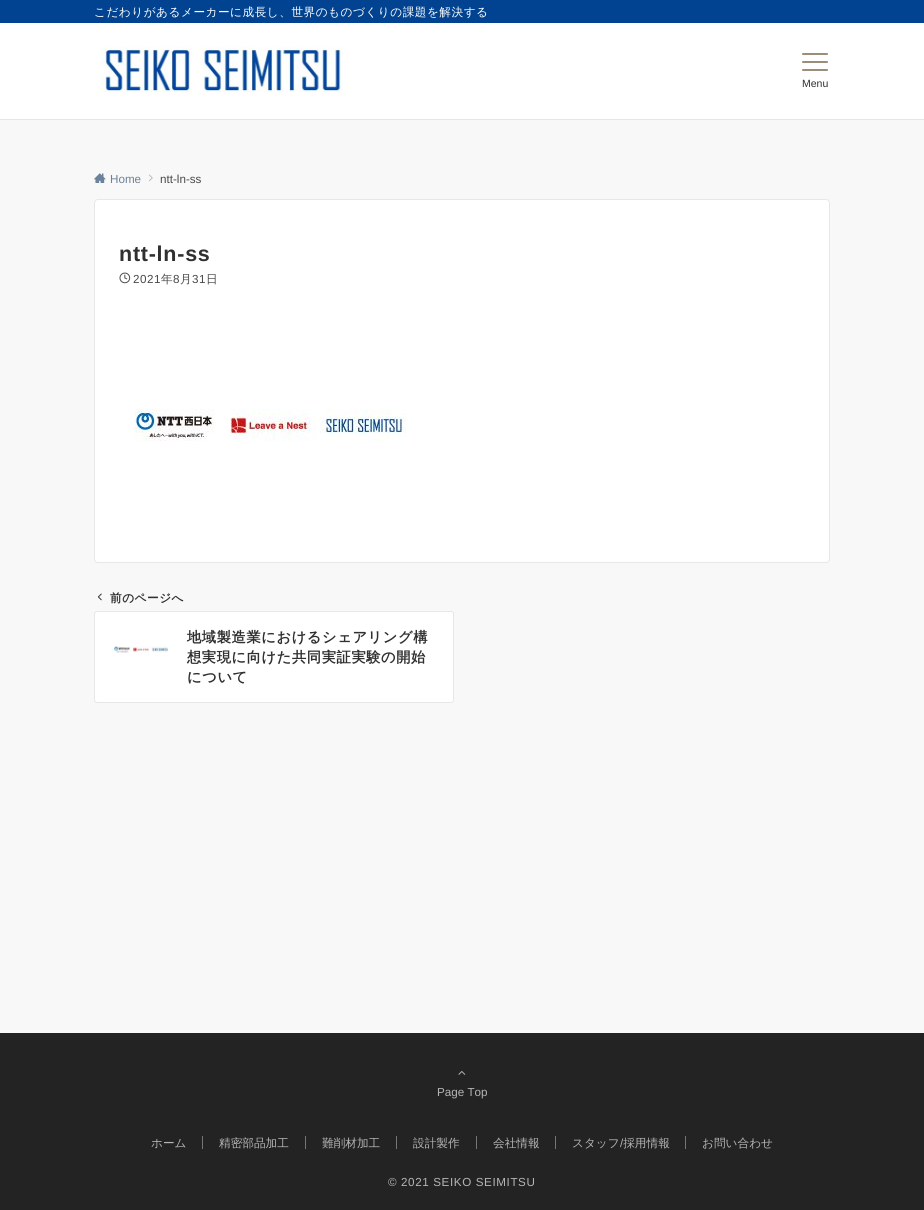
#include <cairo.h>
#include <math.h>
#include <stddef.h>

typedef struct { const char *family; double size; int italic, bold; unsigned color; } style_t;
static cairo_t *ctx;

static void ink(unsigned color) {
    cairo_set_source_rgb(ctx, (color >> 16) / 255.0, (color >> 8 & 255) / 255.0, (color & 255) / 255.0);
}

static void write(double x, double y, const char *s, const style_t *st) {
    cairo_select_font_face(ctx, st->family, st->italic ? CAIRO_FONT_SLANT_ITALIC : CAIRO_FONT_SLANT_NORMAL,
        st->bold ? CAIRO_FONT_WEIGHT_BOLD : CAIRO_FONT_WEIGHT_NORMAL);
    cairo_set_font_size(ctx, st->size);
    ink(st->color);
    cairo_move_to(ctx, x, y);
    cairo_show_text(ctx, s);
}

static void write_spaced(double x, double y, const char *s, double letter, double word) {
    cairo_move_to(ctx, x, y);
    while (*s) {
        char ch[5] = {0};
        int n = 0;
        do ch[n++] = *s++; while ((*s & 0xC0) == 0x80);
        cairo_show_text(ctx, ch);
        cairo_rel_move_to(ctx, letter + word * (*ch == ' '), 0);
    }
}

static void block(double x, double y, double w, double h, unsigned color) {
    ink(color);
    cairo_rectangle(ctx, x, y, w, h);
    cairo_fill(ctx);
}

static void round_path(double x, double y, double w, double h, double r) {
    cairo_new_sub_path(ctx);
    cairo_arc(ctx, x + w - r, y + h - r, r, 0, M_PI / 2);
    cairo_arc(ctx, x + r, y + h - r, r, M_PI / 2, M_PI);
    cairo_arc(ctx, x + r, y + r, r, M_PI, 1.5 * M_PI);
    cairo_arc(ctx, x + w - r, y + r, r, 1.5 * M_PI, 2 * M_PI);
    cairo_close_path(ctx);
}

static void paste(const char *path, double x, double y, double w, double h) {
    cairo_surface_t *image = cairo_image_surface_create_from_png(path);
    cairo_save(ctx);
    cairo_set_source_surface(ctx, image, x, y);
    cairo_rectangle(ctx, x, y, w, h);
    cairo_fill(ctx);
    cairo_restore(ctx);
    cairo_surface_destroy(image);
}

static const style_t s1 = {"Liberation Sans", 10.5, 0, 0, 0x303030};
static const style_t s2 = {"Liberation Sans", 11.65, 0, 0, 0x6c819a};
static const style_t s3 = {"Liberation Sans", 11.65, 0, 0, 0x484848};
static const style_t s4 = {"Liberation Sans", 11.65, 0, 0, 0xb5b5b5};
static const style_t s5 = {"WenQuanYi Zen Hei Medium", 11.65, 0, 0, 0xb5b5b5};

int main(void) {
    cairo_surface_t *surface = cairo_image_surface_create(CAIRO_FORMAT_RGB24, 924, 1210);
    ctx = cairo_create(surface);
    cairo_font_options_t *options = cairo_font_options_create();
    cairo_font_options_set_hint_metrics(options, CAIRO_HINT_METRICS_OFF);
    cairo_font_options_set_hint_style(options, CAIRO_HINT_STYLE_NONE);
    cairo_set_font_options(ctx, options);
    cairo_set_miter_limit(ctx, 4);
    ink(0xf8f8f8);
    cairo_paint(ctx);
    block(0, 0, 924, 23, 0x014390);
    cairo_select_font_face(ctx, "WenQuanYi Zen Hei Medium", CAIRO_FONT_SLANT_NORMAL, CAIRO_FONT_WEIGHT_NORMAL);
    cairo_set_font_size(ctx, 11.65);
    ink(0xffffff);
    write_spaced(94, 16, "こだわりがあるメーカーに成長し、世界のものづくりの課題を解決する", 0.5, 0);
    block(0, 23, 924, 96, 0xffffff);
    block(0, 119, 924, 1, 0xe6e6e6);
    paste("pic1.png", 101, 46, 242, 46);
    ink(0x9b8d77);
    round_path(802, 53, 26, 2, 1);
    cairo_fill(ctx);
    round_path(802, 61, 26, 2, 1);
    cairo_fill(ctx);
    round_path(802, 69, 26, 2, 1);
    cairo_fill(ctx);
    write(802, 87, "Menu", &s1);
    paste("pic2.png", 94, 173, 12, 10);
    write(110, 183, "Home", &s2);
    paste("pic3.png", 149, 174, 4, 8);
    write(160, 183, "ntt-ln-ss", &s3);
    ink(0xffffff);
    round_path(94.5, 199.5, 735, 363, 3.5);
    cairo_fill_preserve(ctx);
    ink(0xe5e7e8);
    cairo_set_line_width(ctx, 1);
    cairo_stroke(ctx);
    cairo_select_font_face(ctx, "Liberation Sans", CAIRO_FONT_SLANT_NORMAL, CAIRO_FONT_WEIGHT_BOLD);
    cairo_set_font_size(ctx, 21.5);
    ink(0x303030);
    write_spaced(119, 261, "ntt-ln-ss", 0.75, 0);
    paste("pic4.png", 119, 272, 12, 12);
    cairo_select_font_face(ctx, "Liberation Sans", CAIRO_FONT_SLANT_NORMAL, CAIRO_FONT_WEIGHT_NORMAL);
    cairo_set_font_size(ctx, 11.65);
    ink(0x484848);
    write_spaced(133, 283, "2021", 0.5, 0);
    cairo_select_font_face(ctx, "WenQuanYi Zen Hei Medium", CAIRO_FONT_SLANT_NORMAL, CAIRO_FONT_WEIGHT_NORMAL);
    write_spaced(161, 283, "年", 0.5, 0);
    cairo_select_font_face(ctx, "Liberation Sans", CAIRO_FONT_SLANT_NORMAL, CAIRO_FONT_WEIGHT_NORMAL);
    write_spaced(173, 283, "8", 0.5, 0);
    cairo_select_font_face(ctx, "WenQuanYi Zen Hei Medium", CAIRO_FONT_SLANT_NORMAL, CAIRO_FONT_WEIGHT_NORMAL);
    write_spaced(180, 283, "月", 0.5, 0);
    cairo_select_font_face(ctx, "Liberation Sans", CAIRO_FONT_SLANT_NORMAL, CAIRO_FONT_WEIGHT_NORMAL);
    write_spaced(192, 283, "31", 0.5, 0);
    cairo_select_font_face(ctx, "WenQuanYi Zen Hei Medium", CAIRO_FONT_SLANT_NORMAL, CAIRO_FONT_WEIGHT_NORMAL);
    write_spaced(206, 283, "日", 0.5, 0);
    paste("pic5.png", 134, 408, 273, 34);
    ink(0xffffff);
    round_path(94.5, 611.5, 359, 91, 2.5);
    cairo_fill_preserve(ctx);
    ink(0xe5e7e8);
    cairo_stroke(ctx);
    paste("pic6.png", 97, 593, 5, 8);
    cairo_select_font_face(ctx, "WenQuanYi Zen Hei", CAIRO_FONT_SLANT_NORMAL, CAIRO_FONT_WEIGHT_BOLD);
    ink(0x303030);
    write_spaced(110, 602, "前のページへ", 0.5, 0);
    paste("pic7.png", 114, 646, 54, 7);
    cairo_set_font_size(ctx, 14.25);
    write_spaced(187, 642, "地域製造業におけるシェアリング構", 0.6, 0);
    write_spaced(187, 662, "想実現に向けた共同実証実験の開始", 0.6, 0);
    write_spaced(187, 682, "について", 0.6, 0);
    block(0, 1033, 924, 177, 0x232323);
    paste("pic8.png", 458, 1071, 8, 4);
    write(437, 1096, "Page Top", &s4);
    write(151, 1147, "ホーム", &s5);
    block(202, 1136, 1, 13, 0x757575);
    write(219, 1147, "精密部品加工", &s5);
    block(305, 1136, 1, 13, 0x757575);
    write(322, 1147, "難削材加工", &s5);
    block(396, 1136, 1, 13, 0x757575);
    write(413, 1147, "設計製作", &s5);
    block(476, 1136, 1, 13, 0x757575);
    write(493, 1147, "会社情報", &s5);
    block(555, 1136, 1, 13, 0x757575);
    write(572, 1147, "スタッフ 採用情報", &s5);
    block(685, 1136, 1, 13, 0x757575);
    write(702, 1147, "お問い合わせ", &s5);
    write(620, 1147, "/", &s4);
    write_spaced(388, 1186, "© 2021 SEIKO SEIMITSU", 0.6, 0);
    cairo_surface_write_to_png(surface, "screenshot.png");
    cairo_font_options_destroy(options);
    cairo_destroy(ctx);
    cairo_surface_destroy(surface);
    return 0;
}
